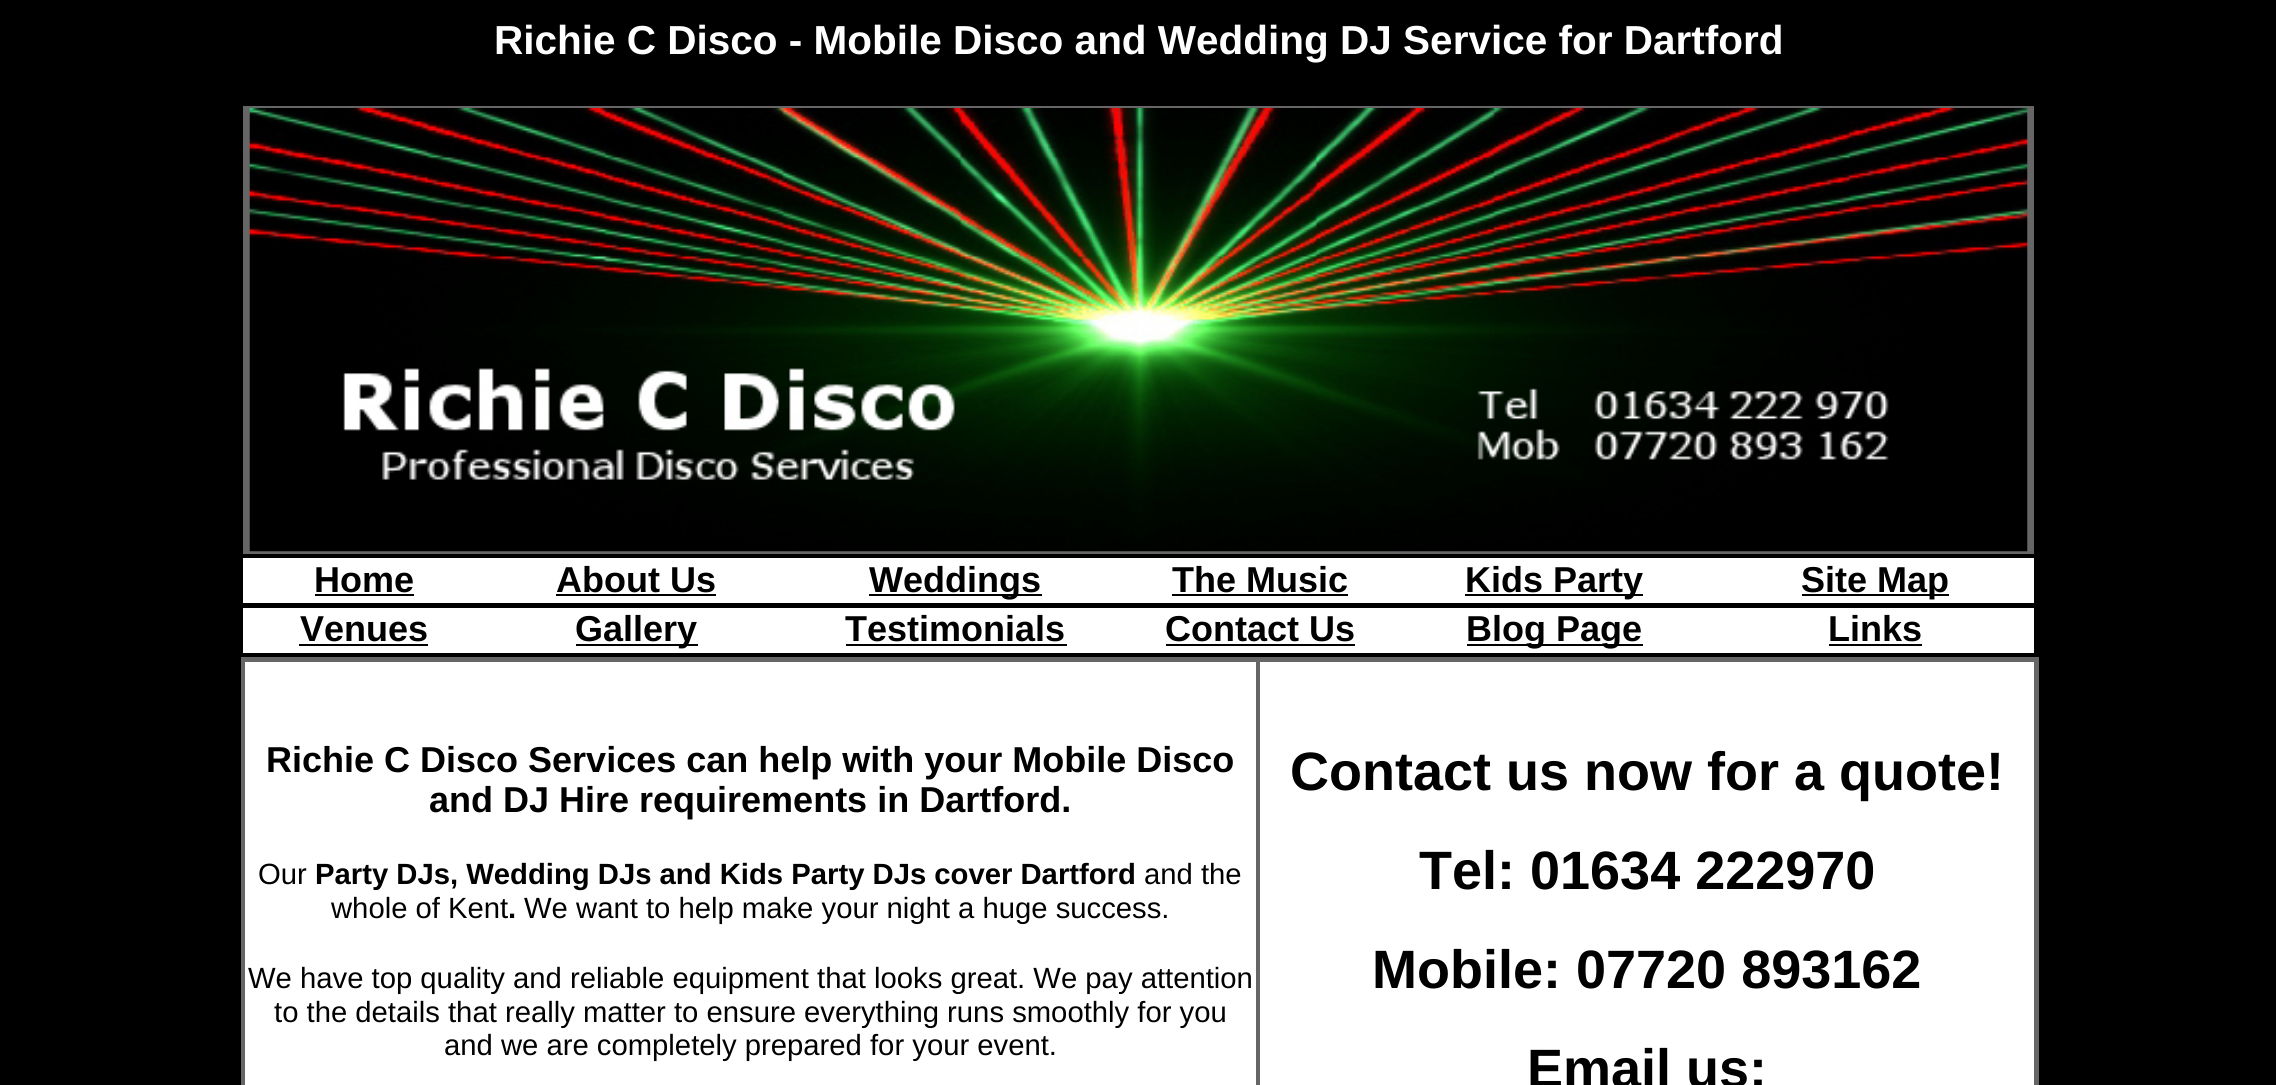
#include <cairo.h>
#include <math.h>
#include <stddef.h>

typedef struct { const char *family; double size; int italic, bold; unsigned color; } style_t;
static cairo_t *ctx;

static void ink(unsigned color) {
    cairo_set_source_rgb(ctx, (color >> 16) / 255.0, (color >> 8 & 255) / 255.0, (color & 255) / 255.0);
}

static void write(double x, double y, const char *s, const style_t *st) {
    cairo_select_font_face(ctx, st->family, st->italic ? CAIRO_FONT_SLANT_ITALIC : CAIRO_FONT_SLANT_NORMAL,
        st->bold ? CAIRO_FONT_WEIGHT_BOLD : CAIRO_FONT_WEIGHT_NORMAL);
    cairo_set_font_size(ctx, st->size);
    ink(st->color);
    cairo_move_to(ctx, x, y);
    cairo_show_text(ctx, s);
}

static void block(double x, double y, double w, double h, unsigned color) {
    ink(color);
    cairo_rectangle(ctx, x, y, w, h);
    cairo_fill(ctx);
}

static void paste(const char *path, double x, double y, double w, double h) {
    cairo_surface_t *image = cairo_image_surface_create_from_png(path);
    cairo_save(ctx);
    cairo_set_source_surface(ctx, image, x, y);
    cairo_rectangle(ctx, x, y, w, h);
    cairo_fill(ctx);
    cairo_restore(ctx);
    cairo_surface_destroy(image);
}

static const style_t s1 = {"Liberation Sans", 40.5, 0, 1, 0xffffff};
static const style_t s2 = {"Liberation Sans", 36, 0, 1, 0x000000};
static const style_t s3 = {"Liberation Sans", 29.25, 0, 0, 0x000000};
static const style_t s4 = {"Liberation Sans", 29.25, 0, 1, 0x000000};
static const style_t s5 = {"Liberation Sans", 54, 0, 1, 0x000000};

int main(void) {
    cairo_surface_t *surface = cairo_image_surface_create(CAIRO_FORMAT_RGB24, 2276, 1085);
    ctx = cairo_create(surface);
    cairo_font_options_t *options = cairo_font_options_create();
    cairo_font_options_set_hint_metrics(options, CAIRO_HINT_METRICS_OFF);
    cairo_font_options_set_hint_style(options, CAIRO_HINT_STYLE_NONE);
    cairo_set_font_options(ctx, options);
    cairo_set_miter_limit(ctx, 4);
    ink(0x000000);
    cairo_paint(ctx);
    write(494, 54, "Richie C Disco - Mobile Disco and Wedding DJ Service for Dartford", &s1);
    block(243, 106, 1791, 448, 0x666666);
    paste("pic1.png", 249, 108, 1779, 444);
    block(243, 558, 1791, 45, 0xffffff);
    write(314, 592, "Home", &s2);
    block(315, 594, 99, 2, 0x000000);
    write(556, 592, "About Us", &s2);
    block(556, 594, 160, 2, 0x000000);
    block(869, 594, 173, 2, 0x000000);
    write(869, 592, "Weddings", &s2);
    write(1172, 592, "The Music", &s2);
    block(1172, 594, 176, 2, 0x000000);
    block(1465, 594, 178, 2, 0x000000);
    write(1465, 592, "Kids Party", &s2);
    block(1802, 594, 147, 2, 0x000000);
    write(1801, 592, "Site Map", &s2);
    block(243, 608, 1791, 45, 0xffffff);
    write(300, 641, "Venues", &s2);
    block(299, 644, 129, 2, 0x000000);
    block(576, 644, 122, 2, 0x000000);
    write(575, 641, "Gallery", &s2);
    write(845, 641, "Testimonials", &s2);
    block(846, 644, 221, 2, 0x000000);
    write(1165, 641, "Contact Us", &s2);
    block(1166, 644, 189, 2, 0x000000);
    block(1467, 644, 176, 2, 0x000000);
    write(1466, 641, "Blog Page", &s2);
    write(1828, 641, "Links", &s2);
    block(1829, 644, 93, 2, 0x000000);
    block(241, 657, 1798, 428, 0x666666);
    block(245, 662, 1011, 423, 0xffffff);
    write(266, 772, "Richie C Disco Services can help with your Mobile Disco", &s2);
    write(429, 812, "and DJ Hire requirements in Dartford.", &s2);
    write(258, 884, "Our", &s3);
    write(315, 884, "Party DJs, Wedding DJs and Kids Party DJs cover Dartford", &s4);
    write(1144, 884, "and the", &s3);
    write(331, 918, "whole of Kent", &s3);
    write(508, 918, ".", &s4);
    write(524, 918, "We want to help make your night a huge success.", &s3);
    write(248, 988, "We have top quality and reliable equipment that looks great. We pay attention", &s3);
    write(274, 1022, "to the details that really matter to ensure everything runs smoothly for you", &s3);
    write(444, 1055, "and we are completely prepared for your event.", &s3);
    block(1260, 662, 774, 423, 0xffffff);
    write(1290, 790, "Contact us now for a quote!", &s5);
    write(1419, 889, "Tel: 01634 222970", &s5);
    write(1372, 988, "Mobile: 07720 893162", &s5);
    write(1527, 1087, "Email us:", &s5);
    cairo_surface_write_to_png(surface, "screenshot.png");
    cairo_font_options_destroy(options);
    cairo_destroy(ctx);
    cairo_surface_destroy(surface);
    return 0;
}
